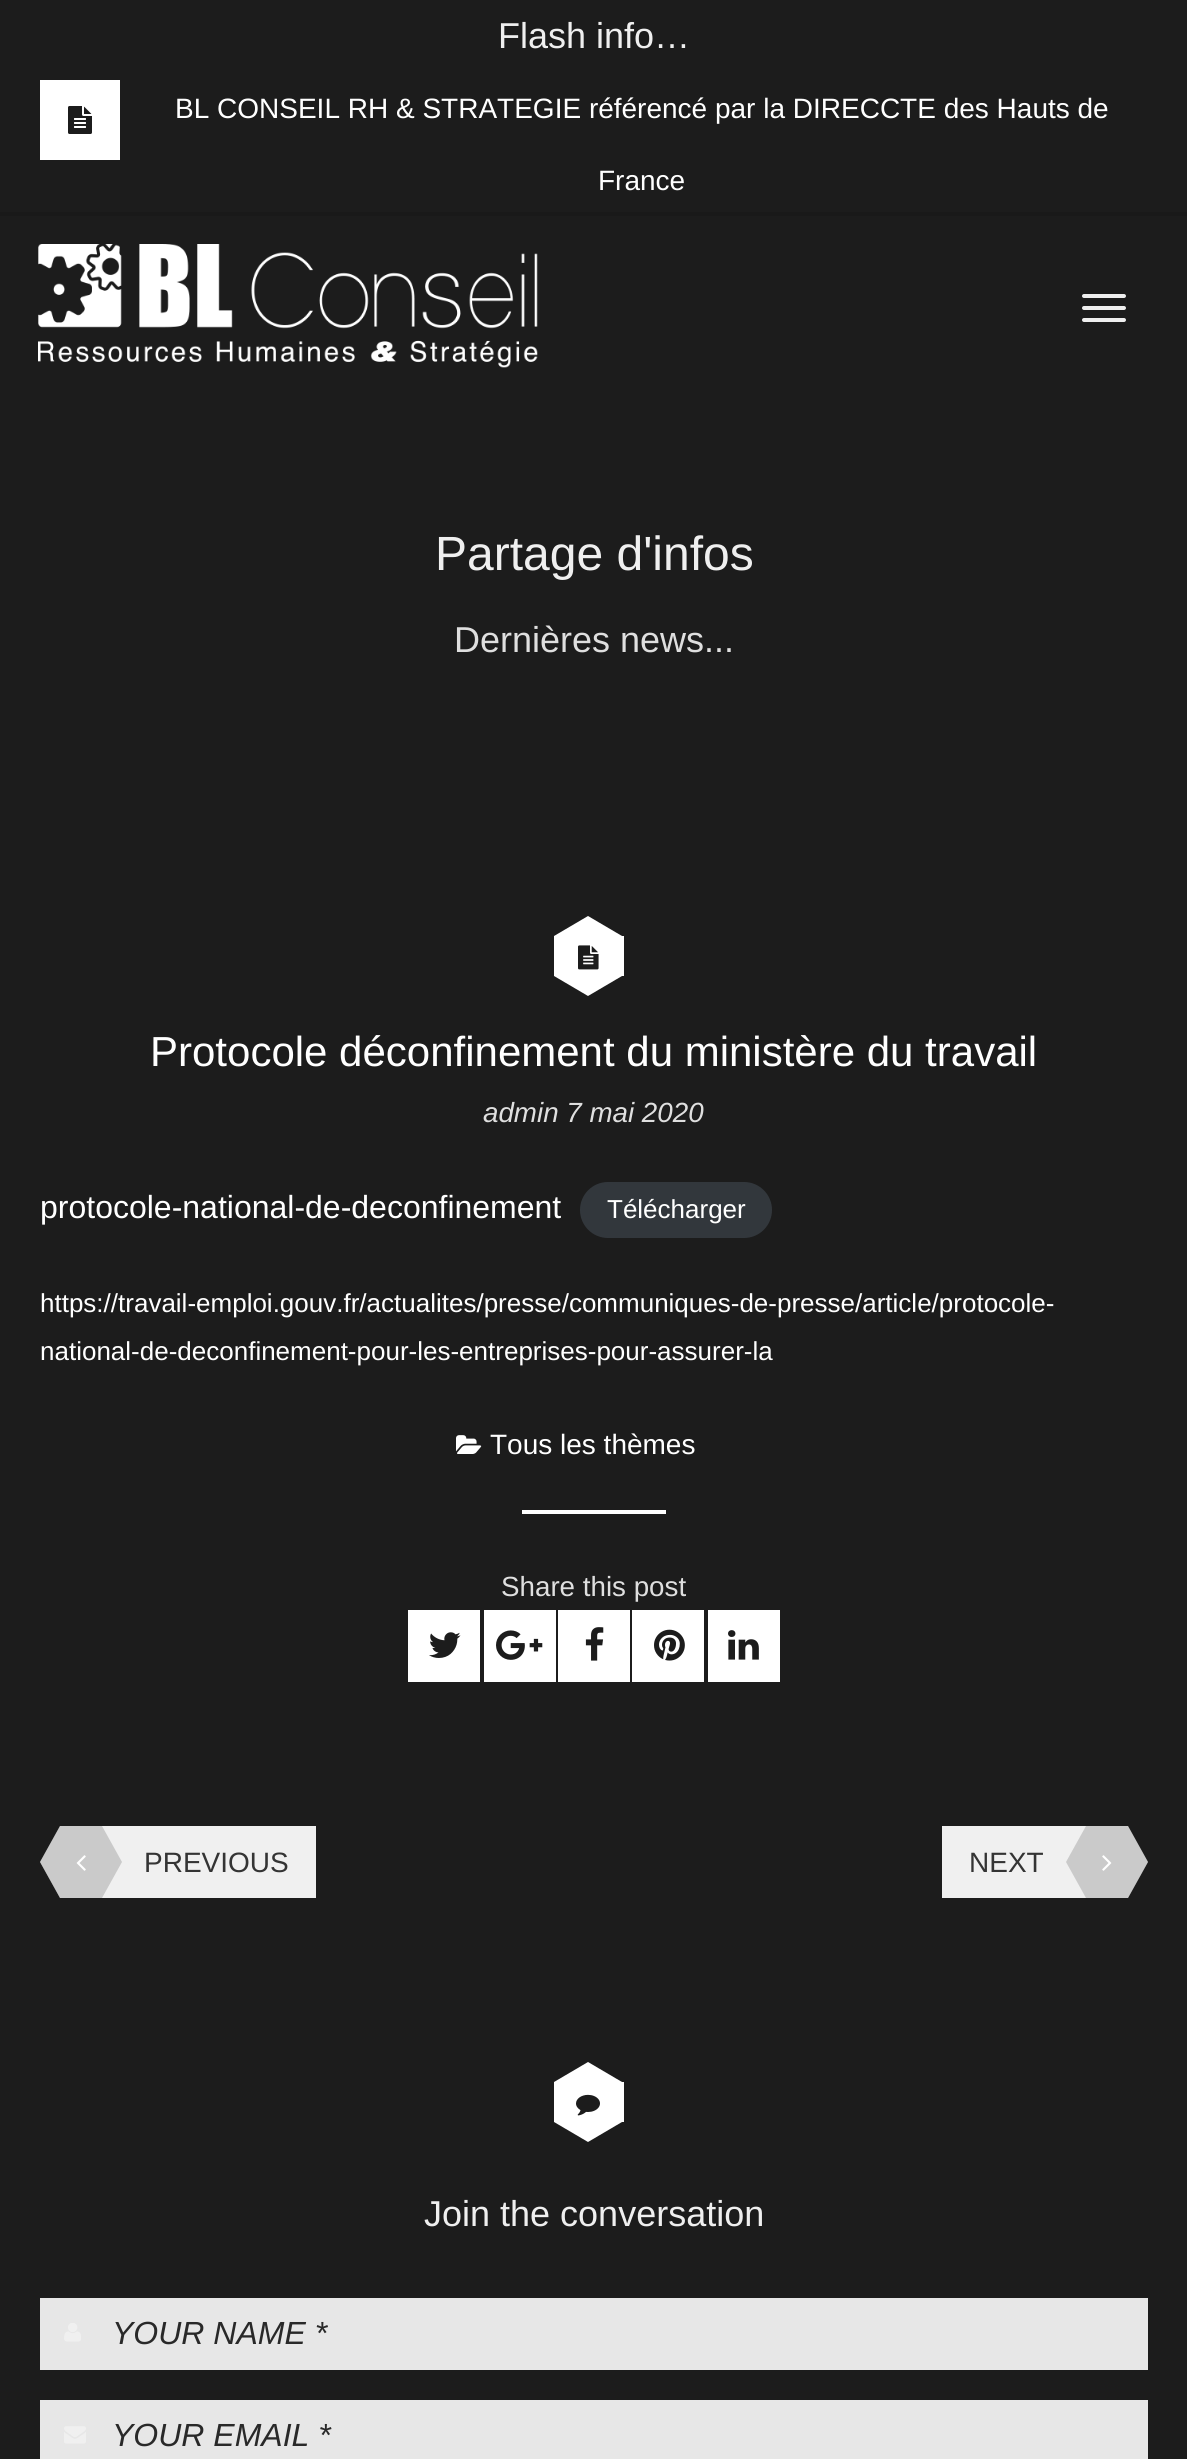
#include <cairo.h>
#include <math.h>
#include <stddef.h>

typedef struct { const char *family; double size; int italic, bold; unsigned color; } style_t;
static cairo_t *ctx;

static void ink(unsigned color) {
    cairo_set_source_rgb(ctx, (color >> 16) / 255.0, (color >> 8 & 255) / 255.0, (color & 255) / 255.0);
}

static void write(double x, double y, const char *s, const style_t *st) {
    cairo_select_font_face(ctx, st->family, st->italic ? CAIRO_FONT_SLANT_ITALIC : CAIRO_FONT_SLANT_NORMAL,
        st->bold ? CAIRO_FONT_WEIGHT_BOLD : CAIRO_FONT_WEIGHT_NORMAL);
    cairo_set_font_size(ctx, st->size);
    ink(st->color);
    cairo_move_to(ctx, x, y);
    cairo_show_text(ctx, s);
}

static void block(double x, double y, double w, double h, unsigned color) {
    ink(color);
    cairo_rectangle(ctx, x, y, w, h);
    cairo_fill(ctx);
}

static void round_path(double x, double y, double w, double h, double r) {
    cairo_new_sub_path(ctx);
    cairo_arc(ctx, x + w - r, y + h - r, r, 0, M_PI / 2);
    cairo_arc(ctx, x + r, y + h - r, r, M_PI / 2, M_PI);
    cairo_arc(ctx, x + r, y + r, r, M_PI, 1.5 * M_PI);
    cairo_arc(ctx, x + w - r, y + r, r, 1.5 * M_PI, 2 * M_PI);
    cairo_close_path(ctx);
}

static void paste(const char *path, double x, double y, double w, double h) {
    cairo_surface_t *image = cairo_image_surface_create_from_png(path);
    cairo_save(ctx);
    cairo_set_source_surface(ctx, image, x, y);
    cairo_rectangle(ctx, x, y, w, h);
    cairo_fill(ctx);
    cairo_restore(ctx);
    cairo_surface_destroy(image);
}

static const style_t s1 = {"Liberation Sans", 36, 0, 0, 0xefefef};
static const style_t s2 = {"Liberation Sans", 28, 0, 0, 0xffffff};
static const style_t s3 = {"Liberation Sans", 48, 0, 0, 0xefefef};
static const style_t s4 = {"Liberation Sans", 36, 0, 0, 0xdfdfdf};
static const style_t s5 = {"Liberation Sans", 42, 0, 0, 0xffffff};
static const style_t s6 = {"Liberation Sans", 27.75, 1, 0, 0xdfdfdf};
static const style_t s7 = {"Liberation Sans", 32, 0, 0, 0xffffff};
static const style_t s8 = {"Liberation Sans", 26, 0, 0, 0xffffff};
static const style_t s9 = {"Liberation Sans", 27.75, 0, 0, 0xdfdfdf};
static const style_t s10 = {"Liberation Sans", 28, 0, 0, 0x343434};
static const style_t s11 = {"Liberation Sans", 32, 1, 0, 0x292929};

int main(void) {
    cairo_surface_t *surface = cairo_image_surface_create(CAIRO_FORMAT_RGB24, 1187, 2459);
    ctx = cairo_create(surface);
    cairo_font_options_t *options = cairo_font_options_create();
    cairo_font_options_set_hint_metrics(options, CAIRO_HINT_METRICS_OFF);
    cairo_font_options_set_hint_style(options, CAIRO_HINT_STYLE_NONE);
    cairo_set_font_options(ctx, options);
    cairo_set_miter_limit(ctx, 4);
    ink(0x1c1c1c);
    cairo_paint(ctx);
    block(0, 212, 1187, 4, 0x191919);
    write(498, 48, "Flash info…", &s1);
    block(40, 80, 80, 80, 0xffffff);
    paste("pic1.png", 68, 106, 24, 28);
    write(175, 118, "BL CONSEIL RH & STRATEGIE référencé par la DIRECCTE des Hauts de", &s2);
    write(598, 190, "France", &s2);
    paste("pic2.png", 38, 244, 500, 124);
    ink(0xefefef);
    round_path(1082, 294, 44, 4, 2);
    cairo_fill(ctx);
    round_path(1082, 306, 44, 4, 2);
    cairo_fill(ctx);
    round_path(1082, 318, 44, 4, 2);
    cairo_fill(ctx);
    write(435, 570, "Partage d'infos", &s3);
    write(454, 652, "Dernières news...", &s4);
    block(554, 936, 70, 40, 0xffffff);
    cairo_new_path(ctx);
    cairo_move_to(ctx, 622, 936);
    cairo_line_to(ctx, 554, 936);
    cairo_line_to(ctx, 588, 916);
    cairo_close_path(ctx);
    cairo_fill(ctx);
    paste("pic3.png", 578, 945, 21, 25);
    cairo_new_path(ctx);
    cairo_move_to(ctx, 554, 976);
    cairo_line_to(ctx, 622, 976);
    cairo_line_to(ctx, 588, 996);
    cairo_close_path(ctx);
    cairo_fill(ctx);
    write(150, 1066, "Protocole déconfinement du ministère du travail", &s5);
    write(483, 1122, "admin 7 mai 2020", &s6);
    write(40, 1218, "protocole-national-de-deconfinement", &s7);
    ink(0x32373c);
    round_path(580, 1182, 192, 56, 28);
    cairo_fill(ctx);
    write(607, 1218, "Télécharger", &s8);
    write(40, 1312, "https://travail-emploi.gouv.fr/actualites/presse/communiques-de-presse/article/protocole-", &s8);
    write(40, 1360, "national-de-deconfinement-pour-les-entreprises-pour-assurer-la", &s8);
    paste("pic4.png", 456, 1435, 26, 19);
    write(490, 1454, "Tous les thèmes", &s2);
    block(522, 1510, 144, 4, 0xffffff);
    write(501, 1596, "Share this post", &s9);
    block(408, 1610, 72, 72, 0xffffff);
    paste("pic5.png", 429, 1632, 32, 26);
    block(484, 1610, 72, 72, 0xffffff);
    paste("pic6.png", 496, 1630, 47, 30);
    block(558, 1610, 72, 72, 0xffffff);
    paste("pic7.png", 585, 1627, 19, 34);
    block(632, 1610, 72, 72, 0xffffff);
    paste("pic8.png", 654, 1629, 31, 32);
    block(708, 1610, 72, 72, 0xffffff);
    paste("pic9.png", 728, 1630, 31, 30);
    block(102, 1826, 214, 72, 0xf0f0f0);
    cairo_new_path(ctx);
    cairo_move_to(ctx, 60, 1826);
    cairo_line_to(ctx, 60, 1898);
    cairo_line_to(ctx, 40, 1862);
    cairo_close_path(ctx);
    cairo_fill(ctx);
    block(60, 1826, 42, 72, 0xcacaca);
    cairo_set_source_rgba(ctx, 0.204, 0.204, 0.204, 0.2);
    cairo_new_path(ctx);
    cairo_move_to(ctx, 60, 1826);
    cairo_line_to(ctx, 60, 1898);
    cairo_line_to(ctx, 40, 1862);
    cairo_close_path(ctx);
    cairo_fill(ctx);
    paste("pic10.png", 76, 1855, 10, 16);
    ink(0xcacaca);
    cairo_new_path(ctx);
    cairo_move_to(ctx, 102, 1898);
    cairo_line_to(ctx, 102, 1826);
    cairo_line_to(ctx, 122, 1862);
    cairo_close_path(ctx);
    cairo_fill(ctx);
    write(144, 1872, "PREVIOUS", &s10);
    block(942, 1826, 144, 72, 0xf0f0f0);
    block(1086, 1826, 42, 72, 0xcacaca);
    cairo_new_path(ctx);
    cairo_move_to(ctx, 1086, 1826);
    cairo_line_to(ctx, 1086, 1898);
    cairo_line_to(ctx, 1066, 1862);
    cairo_close_path(ctx);
    cairo_fill(ctx);
    paste("pic11.png", 1102, 1855, 10, 16);
    ink(0xf0f0f0);
    cairo_new_path(ctx);
    cairo_move_to(ctx, 1128, 1898);
    cairo_line_to(ctx, 1128, 1826);
    cairo_line_to(ctx, 1148, 1862);
    cairo_close_path(ctx);
    cairo_fill(ctx);
    cairo_set_source_rgba(ctx, 0.204, 0.204, 0.204, 0.2);
    cairo_new_path(ctx);
    cairo_move_to(ctx, 1128, 1898);
    cairo_line_to(ctx, 1128, 1826);
    cairo_line_to(ctx, 1148, 1862);
    cairo_close_path(ctx);
    cairo_fill(ctx);
    write(969, 1872, "NEXT", &s10);
    block(554, 2082, 70, 40, 0xffffff);
    cairo_new_path(ctx);
    cairo_move_to(ctx, 622, 2082);
    cairo_line_to(ctx, 554, 2082);
    cairo_line_to(ctx, 588, 2062);
    cairo_close_path(ctx);
    cairo_fill(ctx);
    paste("pic12.png", 576, 2094, 24, 22);
    cairo_new_path(ctx);
    cairo_move_to(ctx, 554, 2122);
    cairo_line_to(ctx, 622, 2122);
    cairo_line_to(ctx, 588, 2142);
    cairo_close_path(ctx);
    cairo_fill(ctx);
    write(424, 2226, "Join the conversation", &s1);
    block(40, 2298, 1108, 72, 0xe7e7e7);
    paste("pic13.png", 64, 2323, 17, 19);
    write(112, 2344, "YOUR NAME *", &s11);
    block(40, 2400, 1108, 59, 0xe7e7e7);
    paste("pic14.png", 64, 2426, 22, 18);
    write(112, 2446, "YOUR EMAIL *", &s11);
    cairo_surface_write_to_png(surface, "screenshot.png");
    cairo_font_options_destroy(options);
    cairo_destroy(ctx);
    cairo_surface_destroy(surface);
    return 0;
}
